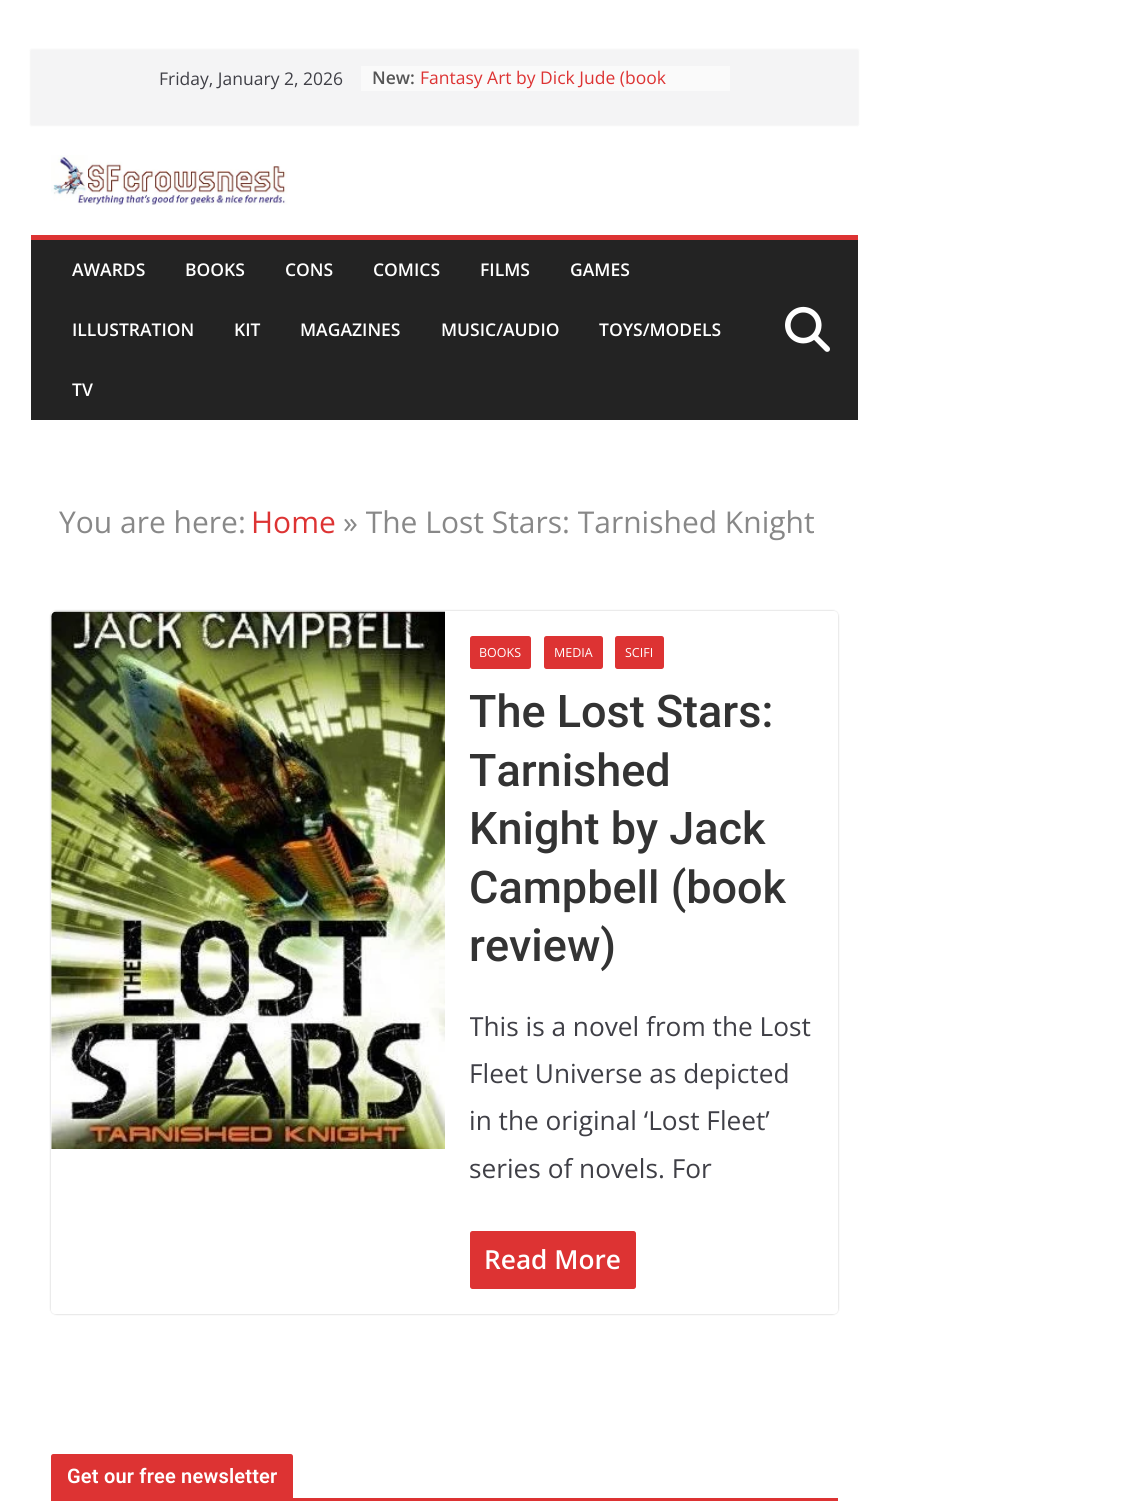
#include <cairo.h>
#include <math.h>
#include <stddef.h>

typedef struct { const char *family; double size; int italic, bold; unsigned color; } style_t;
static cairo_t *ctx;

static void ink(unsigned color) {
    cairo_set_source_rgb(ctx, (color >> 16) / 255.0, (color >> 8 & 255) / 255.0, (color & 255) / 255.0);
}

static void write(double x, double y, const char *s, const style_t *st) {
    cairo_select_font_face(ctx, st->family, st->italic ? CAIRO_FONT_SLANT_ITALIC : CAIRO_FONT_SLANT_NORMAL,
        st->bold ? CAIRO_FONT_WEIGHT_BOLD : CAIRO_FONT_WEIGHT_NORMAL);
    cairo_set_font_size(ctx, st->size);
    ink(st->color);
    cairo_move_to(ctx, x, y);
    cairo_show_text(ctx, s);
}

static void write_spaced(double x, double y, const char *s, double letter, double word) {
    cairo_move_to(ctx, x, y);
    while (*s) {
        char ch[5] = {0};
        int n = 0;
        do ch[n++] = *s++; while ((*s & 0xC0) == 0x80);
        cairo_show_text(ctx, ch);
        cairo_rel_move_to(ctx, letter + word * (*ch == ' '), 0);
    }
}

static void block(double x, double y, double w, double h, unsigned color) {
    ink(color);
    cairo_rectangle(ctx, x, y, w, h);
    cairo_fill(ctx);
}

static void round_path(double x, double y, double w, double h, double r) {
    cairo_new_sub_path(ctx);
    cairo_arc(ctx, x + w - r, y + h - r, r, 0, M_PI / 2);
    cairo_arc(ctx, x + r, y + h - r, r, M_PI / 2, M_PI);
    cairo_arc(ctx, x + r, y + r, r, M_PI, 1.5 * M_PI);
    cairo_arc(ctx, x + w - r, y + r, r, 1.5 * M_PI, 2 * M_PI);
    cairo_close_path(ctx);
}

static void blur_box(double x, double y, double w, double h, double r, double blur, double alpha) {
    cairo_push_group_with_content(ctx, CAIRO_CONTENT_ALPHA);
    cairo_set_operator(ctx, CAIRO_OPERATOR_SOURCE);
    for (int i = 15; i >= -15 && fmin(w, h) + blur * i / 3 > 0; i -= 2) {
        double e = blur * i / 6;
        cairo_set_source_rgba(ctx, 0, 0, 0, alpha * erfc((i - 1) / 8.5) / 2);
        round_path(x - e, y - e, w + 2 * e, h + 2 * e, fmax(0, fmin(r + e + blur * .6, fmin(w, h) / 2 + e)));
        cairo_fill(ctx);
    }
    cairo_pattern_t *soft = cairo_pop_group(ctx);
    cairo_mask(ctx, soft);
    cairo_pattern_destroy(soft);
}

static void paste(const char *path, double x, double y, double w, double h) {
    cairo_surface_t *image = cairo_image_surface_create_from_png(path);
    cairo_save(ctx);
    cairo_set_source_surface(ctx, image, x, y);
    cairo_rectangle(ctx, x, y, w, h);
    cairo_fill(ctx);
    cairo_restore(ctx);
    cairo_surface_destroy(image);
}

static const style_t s1 = {"Open Sans", 17.5, 0, 0, 0x3f3f46};
static const style_t s2 = {"Open Sans SemiBold", 17.5, 0, 0, 0x555555};
static const style_t s3 = {"Open Sans", 17.5, 0, 0, 0xdd3333};
static const style_t s4 = {"Open Sans SemiBold", 17.5, 0, 0, 0xffffff};
static const style_t s5 = {"Open Sans", 30, 0, 0, 0x888888};
static const style_t s6 = {"Open Sans", 30, 0, 0, 0xdd3333};
static const style_t s7 = {"Open Sans", 12.5, 0, 0, 0xffffff};
static const style_t s8 = {"Roboto Medium", 45, 0, 0, 0x333333};
static const style_t s9 = {"Open Sans", 26.25, 0, 0, 0x3f3f46};
static const style_t s10 = {"Open Sans SemiBold", 26.25, 0, 0, 0xffffff};

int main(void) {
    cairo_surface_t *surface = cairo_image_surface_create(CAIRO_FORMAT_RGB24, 1145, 1503);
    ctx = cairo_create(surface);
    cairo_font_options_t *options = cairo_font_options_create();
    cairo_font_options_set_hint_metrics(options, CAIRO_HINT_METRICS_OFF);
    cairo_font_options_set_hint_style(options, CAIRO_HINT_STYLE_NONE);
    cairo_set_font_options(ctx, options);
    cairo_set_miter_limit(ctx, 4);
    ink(0xffffff);
    cairo_paint(ctx);
    ink(0x000000);
    blur_box(31, 50, 827, 75, 0, 1, 0.1);
    block(31, 50, 827, 75, 0xf4f4f5);
    write(159, 85, "Friday, January 2, 2026", &s1);
    block(361, 66, 369, 25, 0xfafafa);
    write(372, 84, "New:", &s2);
    write(420, 84, "Fantasy Art by Dick Jude (book", &s3);
    paste("pic1.png", 51, 155, 237, 50);
    block(31, 240, 827, 180, 0x232323);
    block(31, 235, 827, 5, 0xdd3333);
    write(72, 276, "AWARDS", &s4);
    write(185, 276, "BOOKS", &s4);
    write(285, 276, "CONS", &s4);
    write(373, 276, "COMICS", &s4);
    write(480, 276, "FILMS", &s4);
    write(570, 276, "GAMES", &s4);
    write(72, 336, "ILLUSTRATION", &s4);
    write(234, 336, "KIT", &s4);
    write(300, 336, "MAGAZINES", &s4);
    write(441, 336, "MUSIC/AUDIO", &s4);
    write(599, 336, "TOYS/MODELS", &s4);
    write(72, 396, "TV", &s4);
    paste("pic2.png", 785, 306, 45, 46);
    write(59, 533, "You are here:", &s5);
    write(251, 533, "Home", &s6);
    write(343, 533, "» The Lost Stars: Tarnished Knight", &s5);
    cairo_save(ctx);
    cairo_set_fill_rule(ctx, CAIRO_FILL_RULE_EVEN_ODD);
    cairo_new_path(ctx);
    cairo_move_to(ctx, 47, 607);
    cairo_line_to(ctx, 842, 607);
    cairo_line_to(ctx, 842, 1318);
    cairo_line_to(ctx, 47, 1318);
    cairo_close_path(ctx);
    cairo_move_to(ctx, 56, 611);
    cairo_line_to(ctx, 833, 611);
    cairo_curve_to(ctx, 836, 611, 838, 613, 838, 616);
    cairo_line_to(ctx, 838, 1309);
    cairo_curve_to(ctx, 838, 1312, 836, 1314, 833, 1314);
    cairo_line_to(ctx, 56, 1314);
    cairo_curve_to(ctx, 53, 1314, 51, 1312, 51, 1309);
    cairo_line_to(ctx, 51, 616);
    cairo_curve_to(ctx, 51, 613, 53, 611, 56, 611);
    cairo_close_path(ctx);
    cairo_clip(ctx);
    ink(0x000000);
    blur_box(51, 611, 787, 703, 5, 1, 0.24);
    cairo_restore(ctx);
    paste("pic3.png", 51, 611, 394, 538);
    ink(0xdd3333);
    round_path(470, 636, 61, 33, 2.5);
    cairo_fill(ctx);
    write(479, 657, "BOOKS", &s7);
    ink(0xdd3333);
    round_path(544, 636, 59, 33, 2.5);
    cairo_fill(ctx);
    write(554, 657, "MEDIA", &s7);
    ink(0xdd3333);
    round_path(615, 636, 49, 33, 2.5);
    cairo_fill(ctx);
    write(625, 657, "SCIFI", &s7);
    write(469, 727, "The Lost Stars:", &s8);
    write(469, 786, "Tarnished", &s8);
    write(469, 844, "Knight by Jack", &s8);
    write(469, 903, "Campbell (book", &s8);
    write(469, 961, "review)", &s8);
    cairo_save(ctx);
    cairo_rectangle(ctx, 470, 1004, 343, 189);
    cairo_clip(ctx);
    write(469, 1036, "This is a novel from the Lost", &s9);
    cairo_restore(ctx);
    write(469, 1083, "Fleet Universe as depicted", &s9);
    write(469, 1130, "in the original ‘Lost Fleet’", &s9);
    write(469, 1178, "series of novels. For", &s9);
    ink(0xdd3333);
    round_path(470, 1231, 166, 58, 2.5);
    cairo_fill(ctx);
    write(484, 1269, "Read More", &s10);
    block(51, 1498, 787, 3, 0xdd3333);
    cairo_new_path(ctx);
    cairo_move_to(ctx, 53.5, 1454);
    cairo_line_to(ctx, 290.5, 1454);
    cairo_curve_to(ctx, 292, 1454, 293, 1455, 293, 1456.5);
    cairo_line_to(ctx, 293, 1498);
    cairo_line_to(ctx, 51, 1498);
    cairo_line_to(ctx, 51, 1456.5);
    cairo_curve_to(ctx, 51, 1455, 52, 1454, 53.5, 1454);
    cairo_close_path(ctx);
    cairo_fill(ctx);
    cairo_select_font_face(ctx, "Roboto SemiBold", CAIRO_FONT_SLANT_NORMAL, CAIRO_FONT_WEIGHT_NORMAL);
    cairo_set_font_size(ctx, 20);
    ink(0xffffff);
    write_spaced(67, 1483, "Get our free newsletter", 0.2, 0);
    cairo_surface_write_to_png(surface, "screenshot.png");
    cairo_font_options_destroy(options);
    cairo_destroy(ctx);
    cairo_surface_destroy(surface);
    return 0;
}
